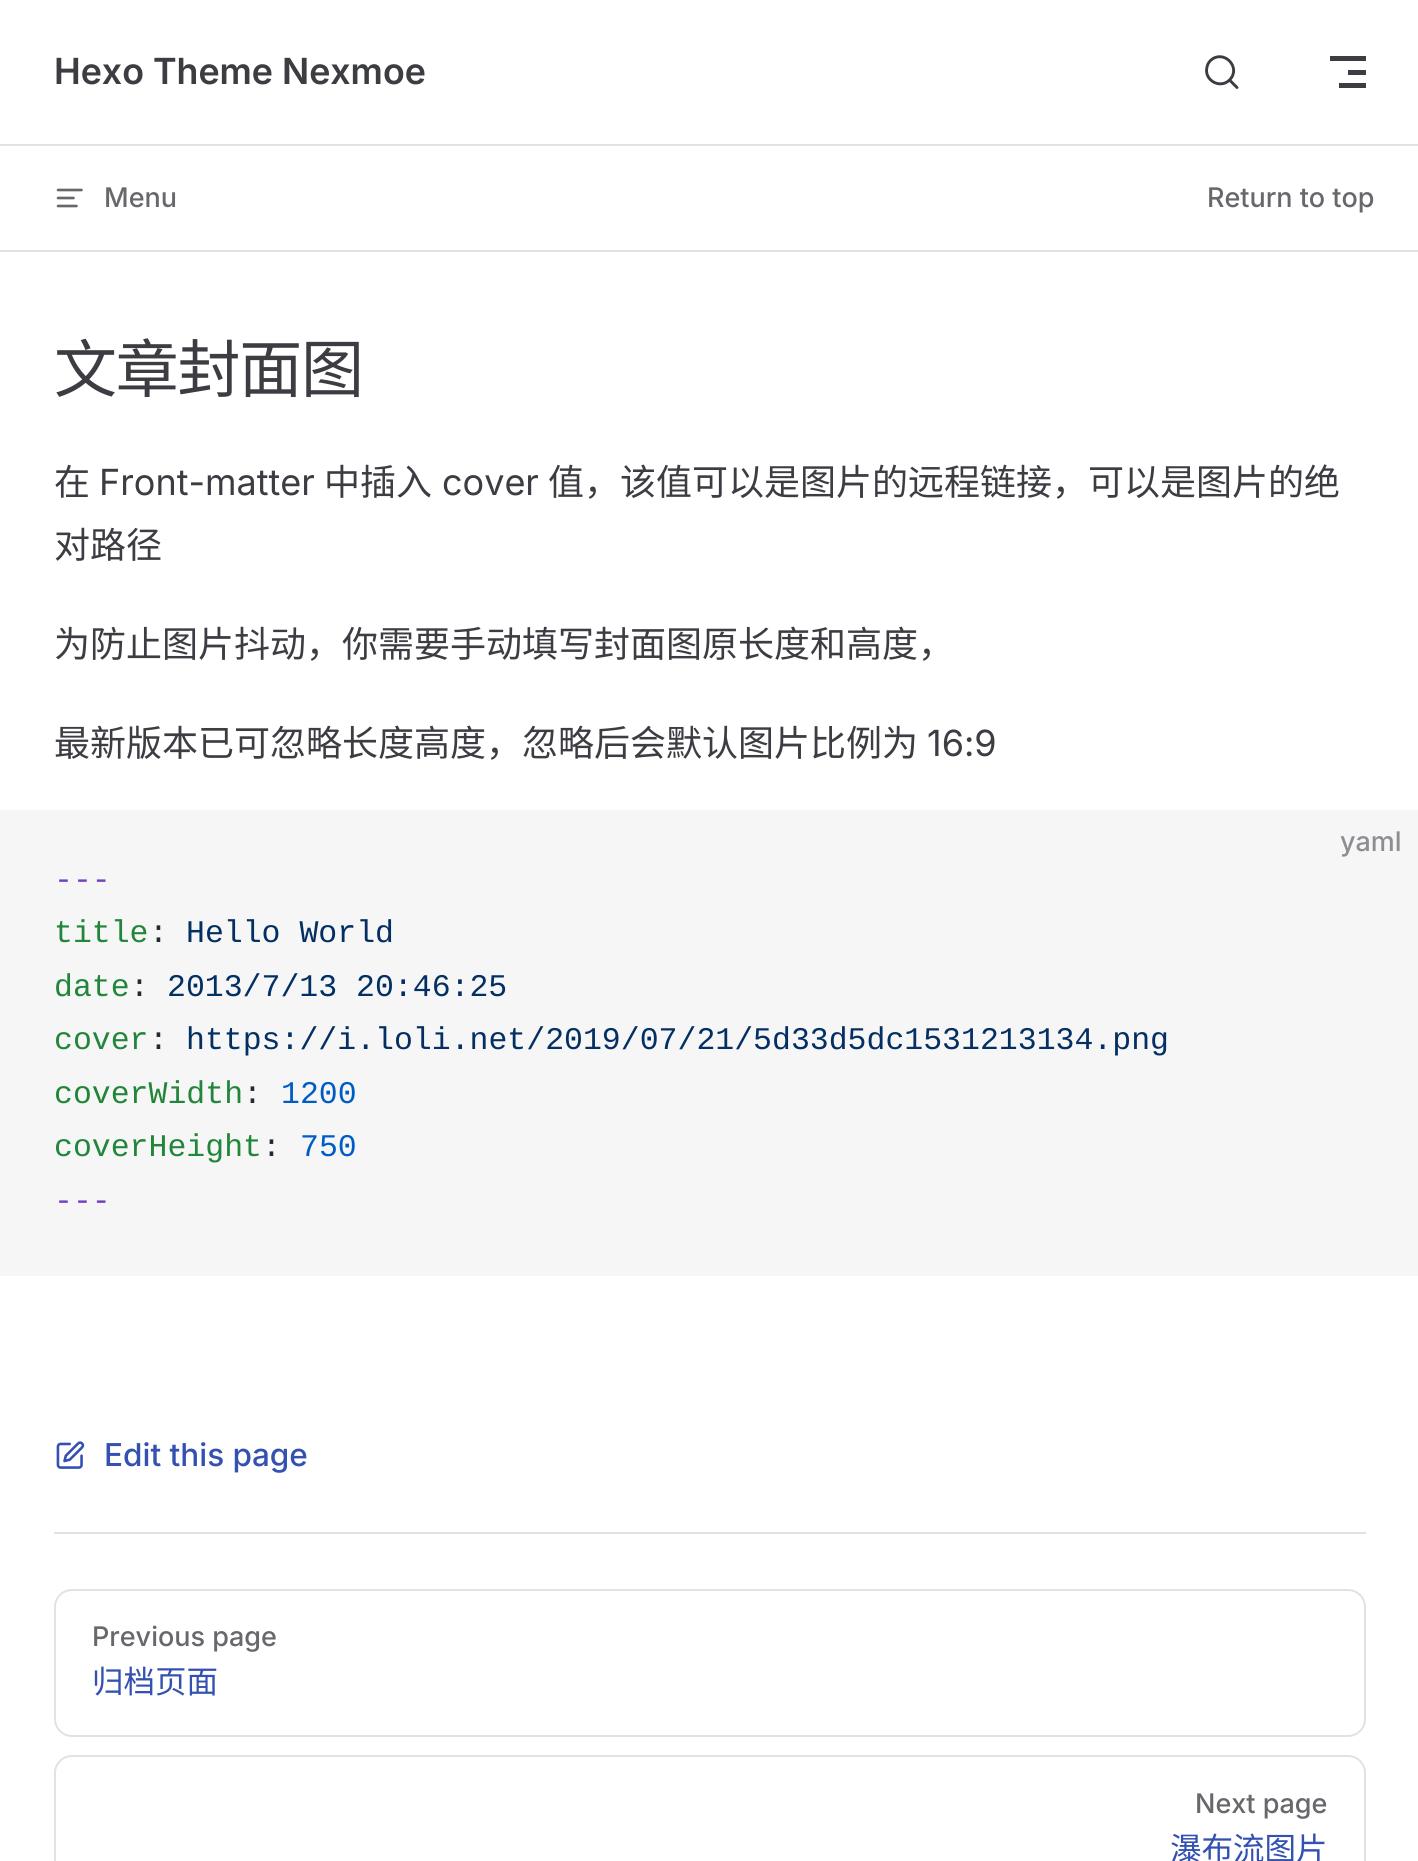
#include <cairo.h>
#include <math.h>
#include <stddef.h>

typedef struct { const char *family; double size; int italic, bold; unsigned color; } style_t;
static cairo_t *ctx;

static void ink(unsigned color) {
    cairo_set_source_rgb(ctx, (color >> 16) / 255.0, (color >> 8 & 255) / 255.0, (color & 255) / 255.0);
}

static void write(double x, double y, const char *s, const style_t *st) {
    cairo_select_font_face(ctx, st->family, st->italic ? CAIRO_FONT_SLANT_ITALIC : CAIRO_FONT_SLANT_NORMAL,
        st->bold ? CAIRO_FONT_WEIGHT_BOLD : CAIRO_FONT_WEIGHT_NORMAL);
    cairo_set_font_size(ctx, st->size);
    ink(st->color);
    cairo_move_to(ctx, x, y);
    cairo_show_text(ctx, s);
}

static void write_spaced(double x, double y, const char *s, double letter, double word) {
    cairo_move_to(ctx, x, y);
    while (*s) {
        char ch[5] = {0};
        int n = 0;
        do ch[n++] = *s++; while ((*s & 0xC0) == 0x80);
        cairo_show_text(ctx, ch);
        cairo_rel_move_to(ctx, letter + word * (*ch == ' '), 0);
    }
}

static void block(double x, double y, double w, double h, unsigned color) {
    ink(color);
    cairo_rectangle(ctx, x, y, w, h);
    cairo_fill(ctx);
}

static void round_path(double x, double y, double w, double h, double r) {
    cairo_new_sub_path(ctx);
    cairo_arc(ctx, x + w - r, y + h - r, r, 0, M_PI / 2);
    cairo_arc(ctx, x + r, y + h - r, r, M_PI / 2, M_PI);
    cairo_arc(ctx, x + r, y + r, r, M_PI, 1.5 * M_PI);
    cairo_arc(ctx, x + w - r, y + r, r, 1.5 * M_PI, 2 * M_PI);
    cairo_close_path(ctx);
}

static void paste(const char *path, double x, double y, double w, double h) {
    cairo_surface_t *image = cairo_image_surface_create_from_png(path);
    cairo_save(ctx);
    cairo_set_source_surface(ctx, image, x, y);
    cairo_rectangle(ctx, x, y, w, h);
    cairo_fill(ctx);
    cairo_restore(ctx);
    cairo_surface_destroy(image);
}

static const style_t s1 = {"Inter SemiBold", 36, 0, 0, 0x3c3c43};
static const style_t s2 = {"Inter Medium", 27, 0, 0, 0x67676c};
static const style_t s3 = {"Noto Sans CJK SC", 36, 0, 0, 0x3c3c43};
static const style_t s4 = {"Inter", 36, 0, 0, 0x3c3c43};
static const style_t s5 = {"Inter Medium", 27, 0, 0, 0x8e8e92};
static const style_t s6 = {"Liberation Mono", 31.5, 0, 0, 0x6f42c1};
static const style_t s7 = {"Liberation Mono", 31.5, 0, 0, 0x22863a};
static const style_t s8 = {"Liberation Mono", 31.5, 0, 0, 0x24292e};
static const style_t s9 = {"Liberation Mono", 31.5, 0, 0, 0x032f62};
static const style_t s10 = {"Liberation Mono", 31.5, 0, 0, 0x005cc5};
static const style_t s11 = {"Inter Medium", 31.5, 0, 0, 0x3451b2};
static const style_t s12 = {"Noto Sans CJK SC", 31.5, 0, 0, 0x3451b2};

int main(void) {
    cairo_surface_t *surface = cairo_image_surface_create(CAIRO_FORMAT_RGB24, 1418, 1861);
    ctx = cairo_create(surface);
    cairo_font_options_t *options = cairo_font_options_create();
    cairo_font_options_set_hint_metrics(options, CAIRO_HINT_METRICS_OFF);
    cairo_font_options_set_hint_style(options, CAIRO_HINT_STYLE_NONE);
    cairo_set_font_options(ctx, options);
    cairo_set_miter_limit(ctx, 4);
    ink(0xffffff);
    cairo_paint(ctx);
    write(54, 84, "Hexo Theme Nexmoe", &s1);
    cairo_new_path(ctx);
    cairo_move_to(ctx, 1229.5, 80);
    cairo_line_to(ctx, 1237, 87.5);
    cairo_line_to(ctx, 1229.5, 80);
    cairo_curve_to(ctx, 1220, 89.5, 1203.5, 80, 1207, 67);
    cairo_curve_to(ctx, 1207.5, 64.5, 1208.5, 62.5, 1210.5, 60.5);
    cairo_curve_to(ctx, 1223.5, 48.5, 1242, 67.5, 1229.5, 80);
    cairo_close_path(ctx);
    cairo_set_line_width(ctx, 2.9);
    cairo_set_line_cap(ctx, CAIRO_LINE_CAP_ROUND);
    cairo_set_line_join(ctx, CAIRO_LINE_JOIN_ROUND);
    cairo_stroke(ctx);
    block(1330, 56, 36, 5, 0x3c3c43);
    block(1348, 70, 18, 5, 0x3c3c43);
    block(1339, 83, 27, 5, 0x3c3c43);
    block(0, 144, 1418, 2, 0xe2e2e3);
    block(0, 250, 1418, 2, 0xe2e2e3);
    cairo_new_path(ctx);
    cairo_move_to(ctx, 81.5, 190);
    cairo_line_to(ctx, 58, 190);
    cairo_move_to(ctx, 73.5, 198);
    cairo_line_to(ctx, 58, 198);
    cairo_move_to(ctx, 76.5, 206);
    cairo_line_to(ctx, 58, 206);
    ink(0x67676c);
    cairo_set_line_width(ctx, 2.6);
    cairo_stroke(ctx);
    write(104, 207, "Menu", &s2);
    write(1207, 207, "Return to top", &s2);
    cairo_select_font_face(ctx, "Noto Sans CJK SC", CAIRO_FONT_SLANT_NORMAL, CAIRO_FONT_WEIGHT_NORMAL);
    cairo_set_font_size(ctx, 63);
    ink(0x3c3c43);
    write_spaced(54, 392, "文章封面图", -1.25, 0);
    write(54, 495, "在", &s3);
    write(99, 495, "Front-matter", &s4);
    write(324, 495, "中插入", &s3);
    write(442, 495, "cover", &s4);
    write(548, 495, "值，该值可以是图片的远程链接，可以是图片的绝", &s3);
    write(54, 558, "对路径", &s3);
    write(54, 657, "为防止图片抖动，你需要手动填写封面图原长度和高度，", &s3);
    write(54, 756, "最新版本已可忽略长度高度，忽略后会默认图片比例为", &s3);
    write(927, 756, "16:9", &s4);
    block(0, 810, 1418, 466, 0xf6f6f7);
    write(1340, 851, "yaml", &s5);
    write(54, 889, "---", &s6);
    write(54, 942, "title", &s7);
    write(149, 942, ":", &s8);
    write(186, 942, "Hello World", &s9);
    write(54, 996, "date", &s7);
    write(130, 996, ":", &s8);
    write(167, 996, "2013/7/13 20:46:25", &s9);
    write(54, 1049, "cover", &s7);
    write(149, 1049, ":", &s8);
    write(186, 1049, "https://i.loli.net/2019/07/21/5d33d5dc1531213134.png", &s9);
    write(54, 1103, "coverWidth", &s7);
    write(243, 1103, ":", &s8);
    write(281, 1103, "1200", &s10);
    write(54, 1156, "coverHeight", &s7);
    write(262, 1156, ":", &s8);
    write(300, 1156, "750", &s10);
    write(54, 1210, "---", &s6);
    paste("pic1.png", 56, 1441, 29, 28);
    write(104, 1466, "Edit this page", &s11);
    block(54, 1532, 1312, 2, 0xe2e2e3);
    round_path(55, 1590, 1310, 146, 17);
    cairo_set_line_width(ctx, 2);
    cairo_set_line_cap(ctx, CAIRO_LINE_CAP_BUTT);
    cairo_set_line_join(ctx, CAIRO_LINE_JOIN_MITER);
    cairo_stroke(ctx);
    write(92, 1646, "Previous page", &s2);
    write(92, 1693, "归档页面", &s12);
    round_path(55, 1756, 1310, 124, 17);
    ink(0xe2e2e3);
    cairo_stroke(ctx);
    write(1195, 1813, "Next page", &s2);
    write(1170, 1860, "瀑布流图片", &s12);
    cairo_surface_write_to_png(surface, "screenshot.png");
    cairo_font_options_destroy(options);
    cairo_destroy(ctx);
    cairo_surface_destroy(surface);
    return 0;
}
